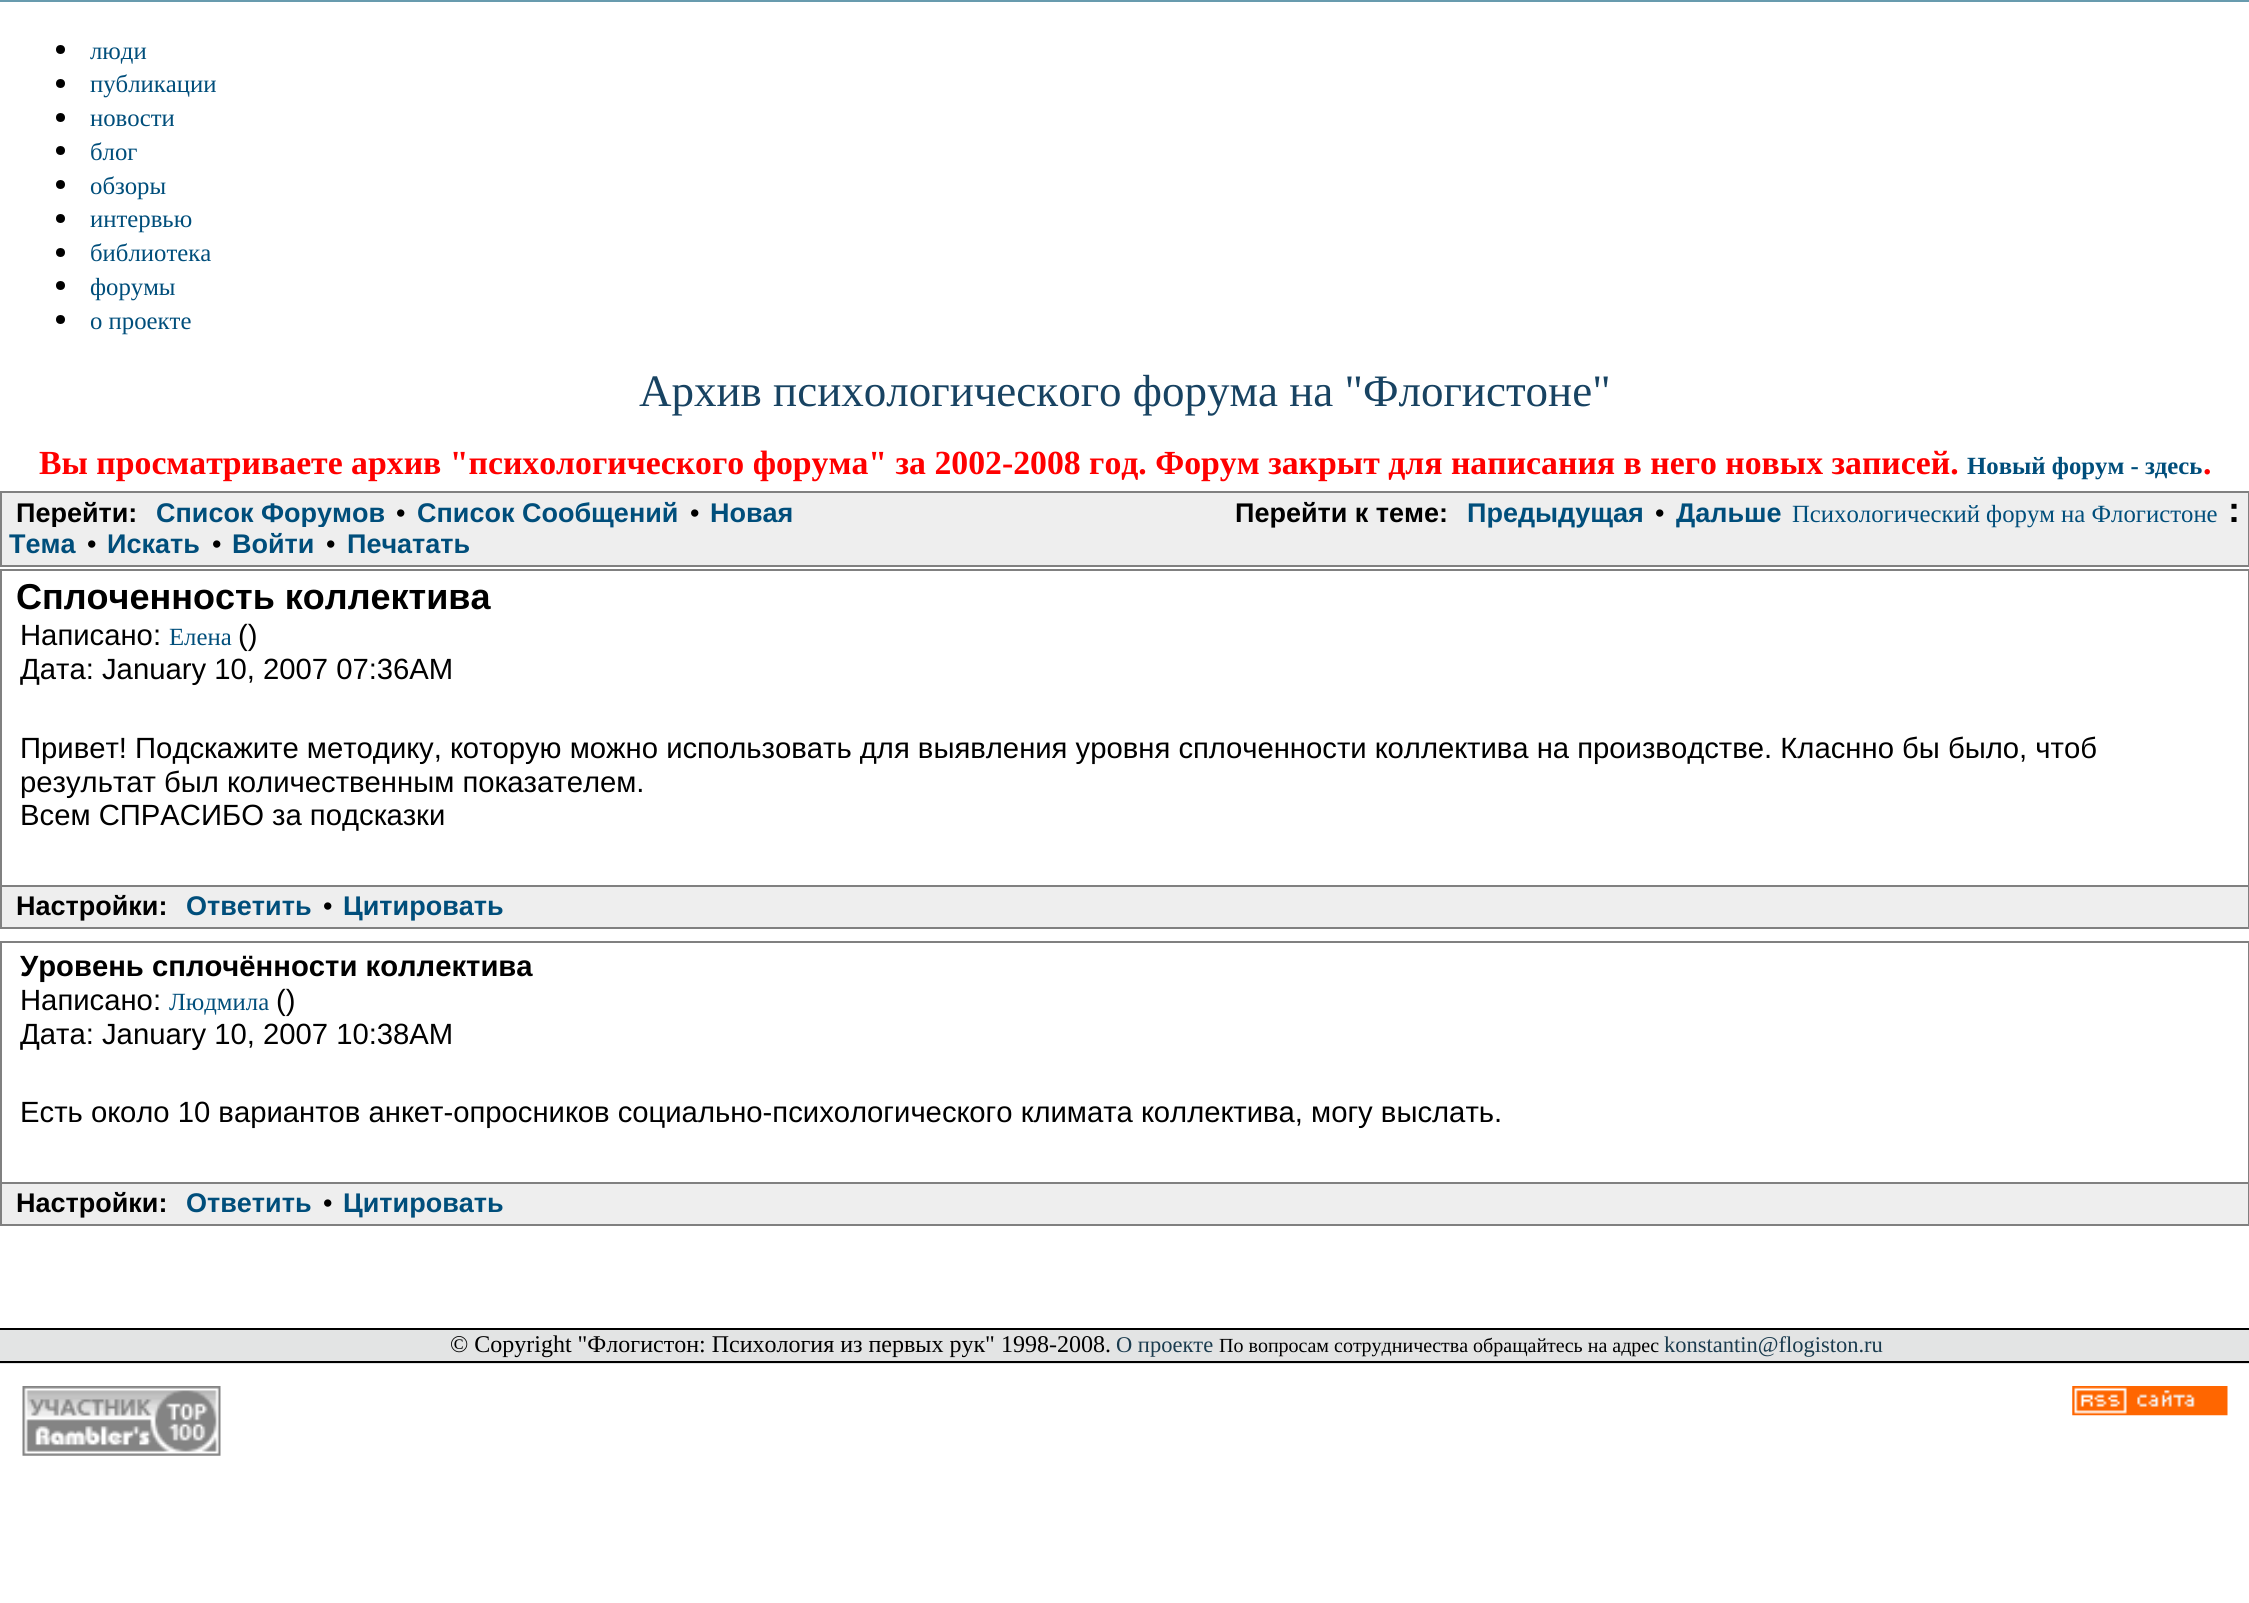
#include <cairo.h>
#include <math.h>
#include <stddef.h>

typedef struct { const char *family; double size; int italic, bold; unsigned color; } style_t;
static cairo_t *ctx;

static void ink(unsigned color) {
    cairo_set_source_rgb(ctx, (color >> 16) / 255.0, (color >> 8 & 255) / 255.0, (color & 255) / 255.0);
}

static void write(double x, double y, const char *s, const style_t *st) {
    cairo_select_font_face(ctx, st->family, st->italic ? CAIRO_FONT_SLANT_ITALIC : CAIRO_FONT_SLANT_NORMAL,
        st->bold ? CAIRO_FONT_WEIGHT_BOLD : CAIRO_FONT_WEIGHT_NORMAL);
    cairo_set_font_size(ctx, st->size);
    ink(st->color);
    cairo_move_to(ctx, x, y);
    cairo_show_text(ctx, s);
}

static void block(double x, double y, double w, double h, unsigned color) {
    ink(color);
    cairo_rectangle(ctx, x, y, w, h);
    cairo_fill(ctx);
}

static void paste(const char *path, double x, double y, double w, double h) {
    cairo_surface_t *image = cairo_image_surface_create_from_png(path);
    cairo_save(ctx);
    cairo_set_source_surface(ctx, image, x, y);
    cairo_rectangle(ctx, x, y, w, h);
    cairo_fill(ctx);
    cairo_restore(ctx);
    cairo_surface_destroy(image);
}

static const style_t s1 = {"Liberation Serif", 24.75, 0, 0, 0x004e7b};
static const style_t s2 = {"Liberation Serif", 45, 0, 0, 0x184362};
static const style_t s3 = {"Liberation Serif", 33.75, 0, 1, 0xff0000};
static const style_t s4 = {"Liberation Serif", 24.75, 0, 1, 0x004e7b};
static const style_t s5 = {"Liberation Sans", 27, 0, 1, 0x000000};
static const style_t s6 = {"Liberation Sans", 27, 0, 1, 0x004e7b};
static const style_t s7 = {"Liberation Sans", 27, 0, 0, 0x000000};
static const style_t s8 = {"Liberation Sans", 36, 0, 1, 0x000000};
static const style_t s9 = {"Liberation Sans", 29.25, 0, 0, 0x000000};
static const style_t s10 = {"Liberation Sans", 29.25, 0, 1, 0x000000};
static const style_t s11 = {"Liberation Serif", 24, 0, 0, 0x000000};
static const style_t s12 = {"Liberation Serif", 22.5, 0, 0, 0x1a3b4e};
static const style_t s13 = {"Liberation Serif", 20, 0, 0, 0x000000};

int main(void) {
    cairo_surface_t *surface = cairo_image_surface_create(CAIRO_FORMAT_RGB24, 2249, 1603);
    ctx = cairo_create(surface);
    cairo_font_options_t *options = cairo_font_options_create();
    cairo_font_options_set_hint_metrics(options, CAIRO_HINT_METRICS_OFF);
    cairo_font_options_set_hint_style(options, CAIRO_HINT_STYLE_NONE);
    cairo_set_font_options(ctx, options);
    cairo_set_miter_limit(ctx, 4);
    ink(0xffffff);
    cairo_paint(ctx);
    block(0, 0, 2249, 2, 0x689bae);
    ink(0x000000);
    cairo_arc(ctx, 60.5, 49.5, 4.5, 0, 2 * M_PI);
    cairo_fill(ctx);
    write(90, 59, "люди", &s1);
    ink(0x000000);
    cairo_new_path(ctx);
    cairo_arc(ctx, 60.5, 83.5, 4.5, 0, 2 * M_PI);
    cairo_fill(ctx);
    write(90, 92, "публикации", &s1);
    ink(0x000000);
    cairo_new_path(ctx);
    cairo_arc(ctx, 60.5, 117.5, 4.5, 0, 2 * M_PI);
    cairo_fill(ctx);
    write(90, 126, "новости", &s1);
    ink(0x000000);
    cairo_new_path(ctx);
    cairo_arc(ctx, 60.5, 150.5, 4.5, 0, 2 * M_PI);
    cairo_fill(ctx);
    write(90, 160, "блог", &s1);
    ink(0x000000);
    cairo_new_path(ctx);
    cairo_arc(ctx, 60.5, 184.5, 4.5, 0, 2 * M_PI);
    cairo_fill(ctx);
    write(90, 194, "обзоры", &s1);
    ink(0x000000);
    cairo_new_path(ctx);
    cairo_arc(ctx, 60.5, 218.5, 4.5, 0, 2 * M_PI);
    cairo_fill(ctx);
    write(90, 227, "интервью", &s1);
    ink(0x000000);
    cairo_new_path(ctx);
    cairo_arc(ctx, 60.5, 252.5, 4.5, 0, 2 * M_PI);
    cairo_fill(ctx);
    write(90, 261, "библиотека", &s1);
    ink(0x000000);
    cairo_new_path(ctx);
    cairo_arc(ctx, 60.5, 285.5, 4.5, 0, 2 * M_PI);
    cairo_fill(ctx);
    write(90, 295, "форумы", &s1);
    ink(0x000000);
    cairo_new_path(ctx);
    cairo_arc(ctx, 60.5, 319.5, 4.5, 0, 2 * M_PI);
    cairo_fill(ctx);
    write(90, 329, "о проекте", &s1);
    write(639, 406, "Архив психологического форума на \"Флогистоне\"", &s2);
    write(39, 474, "Вы просматриваете архив \"психологического форума\" за 2002-2008 год. Форум закрыт для написания в него новых записей.", &s3);
    write(1967, 474, "Новый форум - здесь", &s4);
    write(2203, 474, ".", &s3);
    ink(0xeeeeee);
    cairo_rectangle(ctx, 1, 492, 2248, 74);
    cairo_fill_preserve(ctx);
    ink(0x808080);
    cairo_stroke(ctx);
    write(16, 522, "Перейти:", &s5);
    write(156, 522, "Список Форумов", &s6);
    write(396, 522, "•", &s7);
    write(417, 522, "Список Сообщений", &s6);
    write(690, 522, "•", &s7);
    write(710, 522, "Новая", &s6);
    write(1235, 522, "Перейти к теме:", &s5);
    write(1467, 522, "Предыдущая", &s6);
    write(1655, 522, "•", &s7);
    write(1676, 522, "Дальше", &s6);
    write(9, 553, "Тема", &s6);
    block(52, 527, 4, 1, 0xeeeeee);
    write(87, 553, "•", &s7);
    write(107, 553, "Искать", &s6);
    write(212, 553, "•", &s7);
    cairo_rectangle(ctx, 222, 528, 103, 34);
    ink(0xeeeeee);
    cairo_stroke(ctx);
    write(232, 553, "Войти", &s6);
    write(326, 553, "•", &s7);
    write(347, 553, "Печатать", &s6);
    write(1792, 522, "Психологический форум на Флогистоне", &s1);
    write(2228, 522, ":", &s8);
    cairo_rectangle(ctx, 1, 570, 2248, 316);
    ink(0x808080);
    cairo_stroke(ctx);
    write(16, 609, "Сплоченность коллектива", &s8);
    write(20, 645, "Написано:", &s9);
    write(169, 645, "Елена", &s1);
    write(238, 645, "()", &s9);
    write(20, 679, "Дата: January 10, 2007 07:36AM", &s9);
    write(20, 758, "Привет! Подскажите методику, которую можно использовать для выявления уровня сплоченности коллектива на производстве. Класнно бы было, чтоб", &s9);
    write(20, 792, "результат был количественным показателем.", &s9);
    write(20, 825, "Всем СПРАСИБО за подсказки", &s9);
    block(2, 887, 2246, 40, 0xeeeeee);
    block(2248, 887, 1, 42, 0x808080);
    block(0, 927, 2249, 2, 0x808080);
    block(0, 887, 2, 42, 0x808080);
    write(16, 915, "Настройки:", &s5);
    write(186, 915, "Ответить", &s6);
    write(323, 915, "•", &s7);
    write(343, 915, "Цитировать", &s6);
    cairo_rectangle(ctx, 1, 942, 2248, 241);
    ink(0x808080);
    cairo_stroke(ctx);
    write(20, 976, "Уровень сплочённости коллектива", &s10);
    write(20, 1010, "Написано:", &s9);
    write(169, 1010, "Людмила", &s1);
    write(276, 1010, "()", &s9);
    write(20, 1044, "Дата: January 10, 2007 10:38AM", &s9);
    write(20, 1122, "Есть около 10 вариантов анкет-опросников социально-психологического климата коллектива, могу выслать.", &s9);
    block(2, 1184, 2246, 40, 0xeeeeee);
    block(2248, 1184, 1, 42, 0x808080);
    block(0, 1224, 2249, 2, 0x808080);
    block(0, 1184, 2, 42, 0x808080);
    write(16, 1212, "Настройки:", &s5);
    write(186, 1212, "Ответить", &s6);
    write(323, 1212, "•", &s7);
    write(343, 1212, "Цитировать", &s6);
    block(0, 1330, 2249, 34, 0xe3e4e4);
    block(0, 1328, 2249, 2, 0x000000);
    block(0, 1361, 2249, 2, 0x000000);
    write(450, 1352, "© Copyright \"Флогистон: Психология из первых рук\" 1998-2008.", &s11);
    write(1116, 1352, "О проекте", &s12);
    write(1219, 1352, "По вопросам сотрудничества обращайтесь на адрес", &s13);
    write(1664, 1352, "konstantin@flogiston.ru", &s12);
    paste("pic1.png", 22, 1386, 199, 70);
    paste("pic2.png", 2072, 1386, 156, 30);
    cairo_surface_write_to_png(surface, "screenshot.png");
    cairo_font_options_destroy(options);
    cairo_destroy(ctx);
    cairo_surface_destroy(surface);
    return 0;
}
